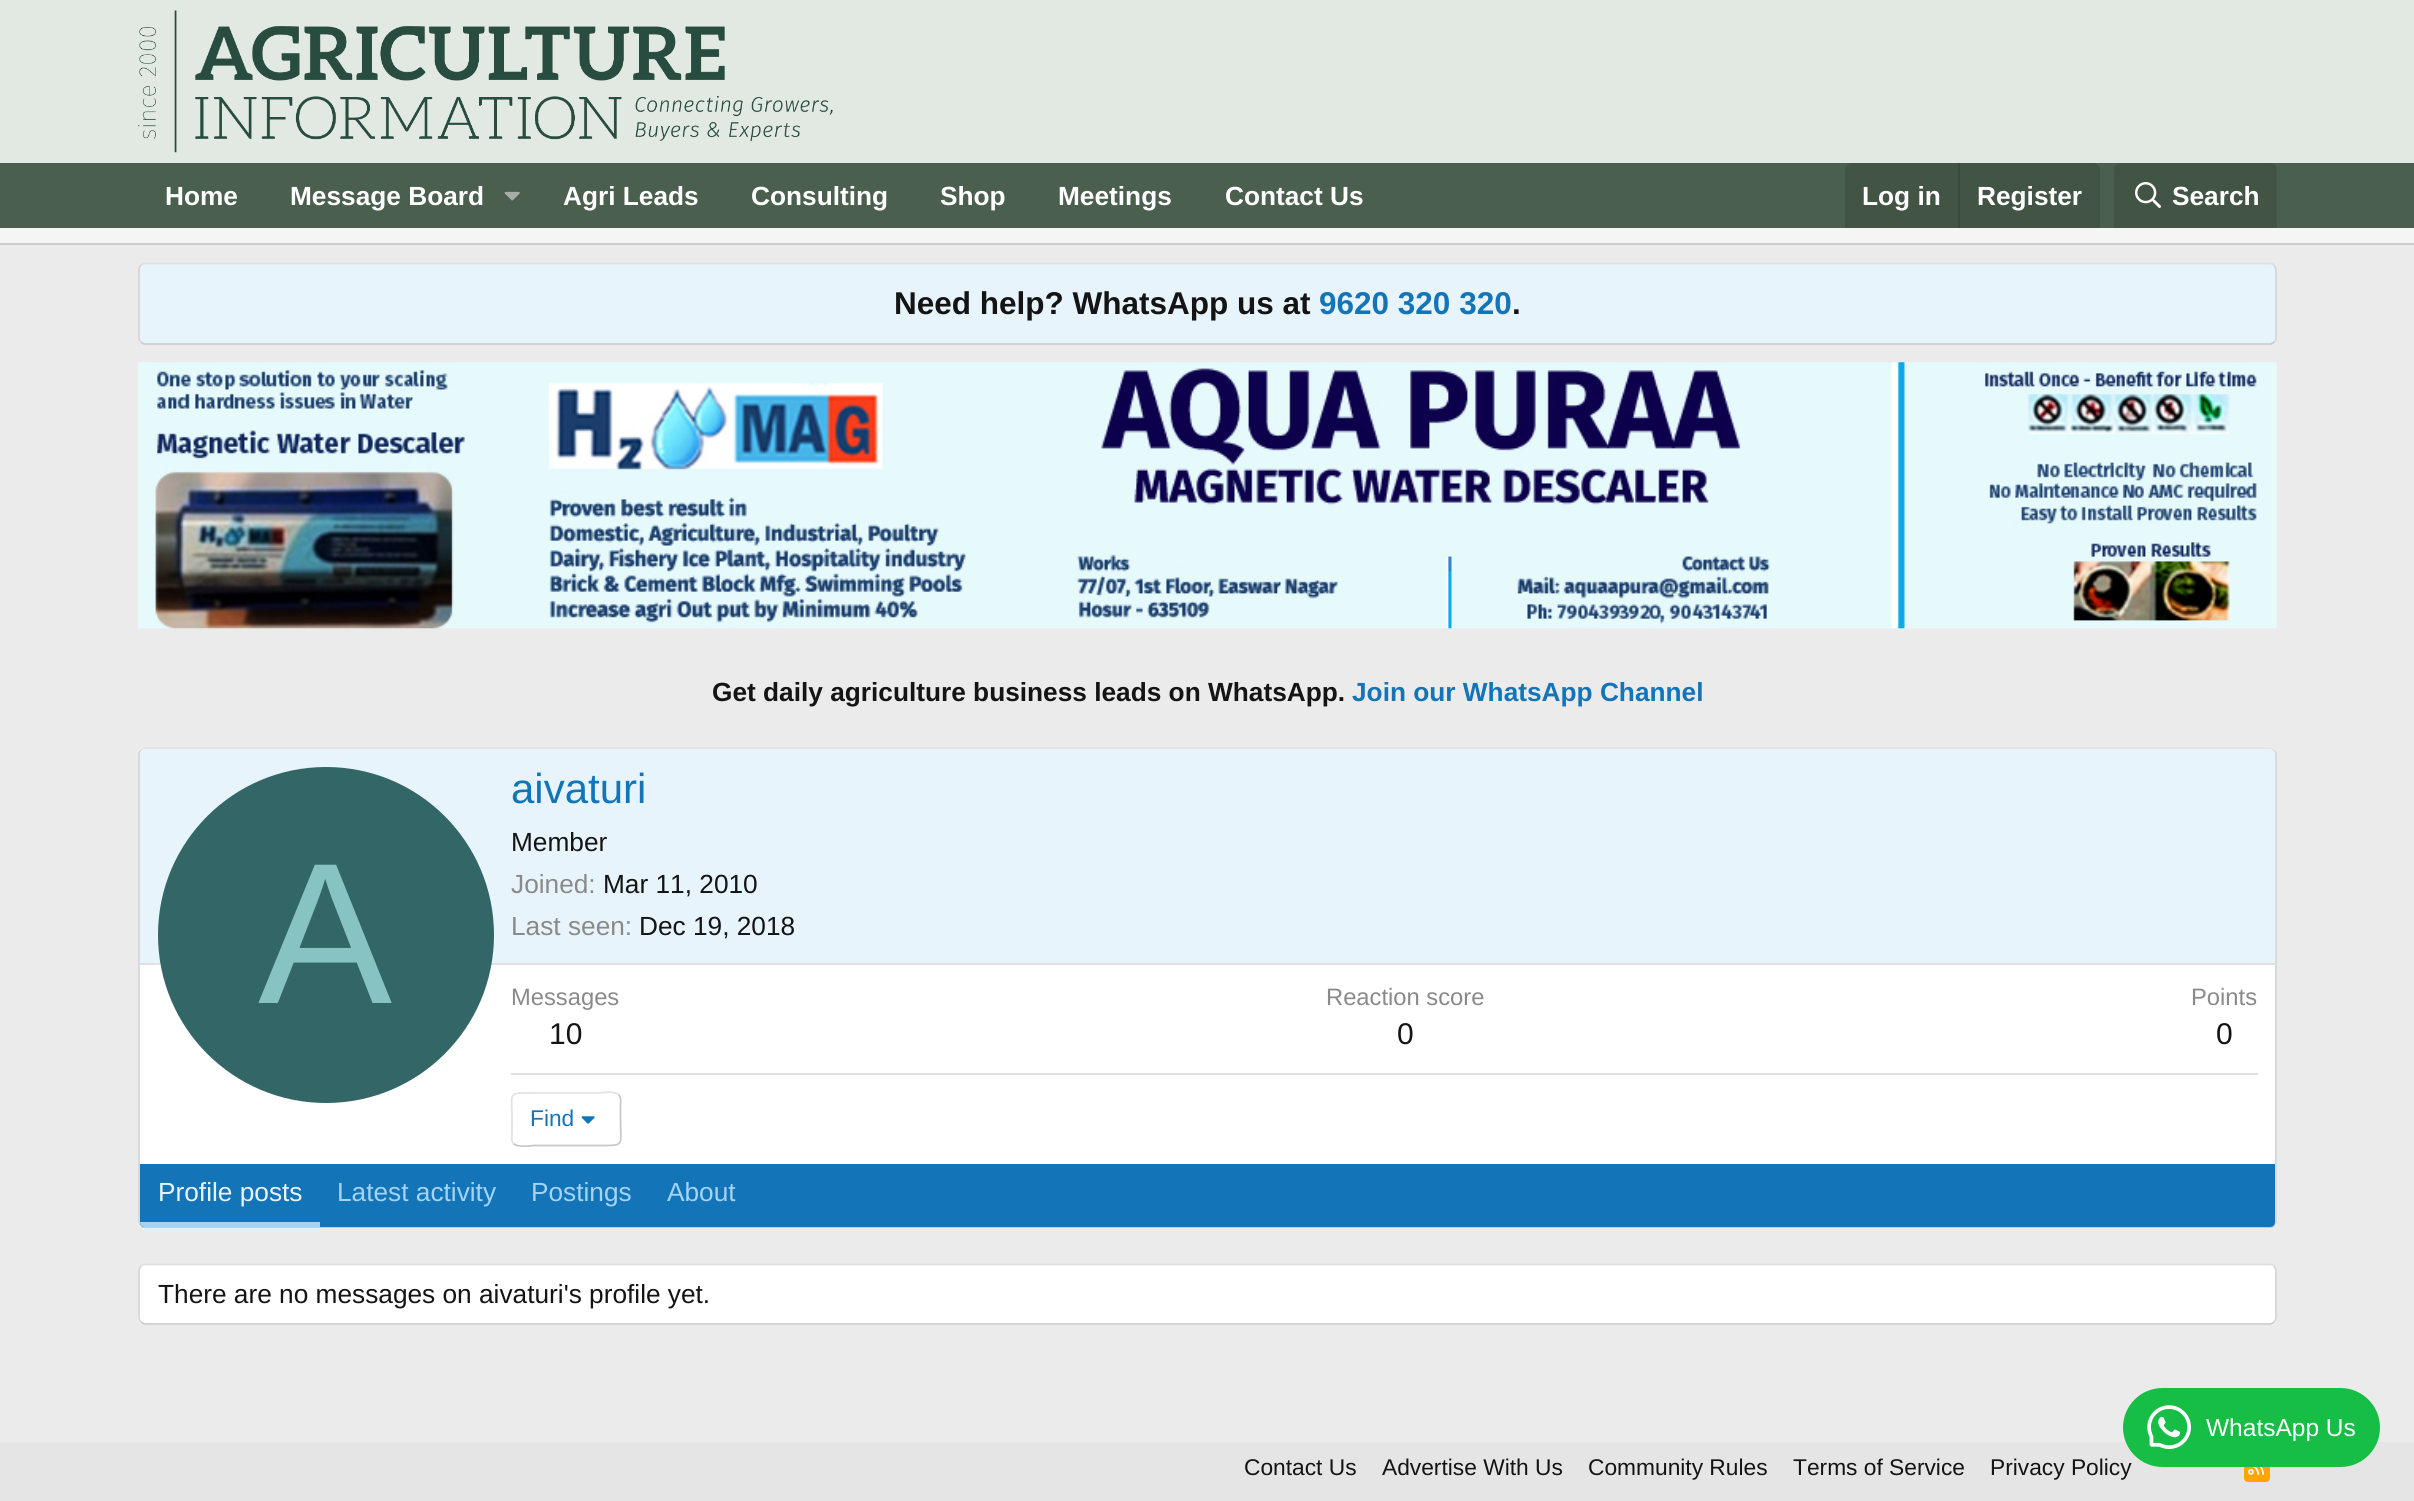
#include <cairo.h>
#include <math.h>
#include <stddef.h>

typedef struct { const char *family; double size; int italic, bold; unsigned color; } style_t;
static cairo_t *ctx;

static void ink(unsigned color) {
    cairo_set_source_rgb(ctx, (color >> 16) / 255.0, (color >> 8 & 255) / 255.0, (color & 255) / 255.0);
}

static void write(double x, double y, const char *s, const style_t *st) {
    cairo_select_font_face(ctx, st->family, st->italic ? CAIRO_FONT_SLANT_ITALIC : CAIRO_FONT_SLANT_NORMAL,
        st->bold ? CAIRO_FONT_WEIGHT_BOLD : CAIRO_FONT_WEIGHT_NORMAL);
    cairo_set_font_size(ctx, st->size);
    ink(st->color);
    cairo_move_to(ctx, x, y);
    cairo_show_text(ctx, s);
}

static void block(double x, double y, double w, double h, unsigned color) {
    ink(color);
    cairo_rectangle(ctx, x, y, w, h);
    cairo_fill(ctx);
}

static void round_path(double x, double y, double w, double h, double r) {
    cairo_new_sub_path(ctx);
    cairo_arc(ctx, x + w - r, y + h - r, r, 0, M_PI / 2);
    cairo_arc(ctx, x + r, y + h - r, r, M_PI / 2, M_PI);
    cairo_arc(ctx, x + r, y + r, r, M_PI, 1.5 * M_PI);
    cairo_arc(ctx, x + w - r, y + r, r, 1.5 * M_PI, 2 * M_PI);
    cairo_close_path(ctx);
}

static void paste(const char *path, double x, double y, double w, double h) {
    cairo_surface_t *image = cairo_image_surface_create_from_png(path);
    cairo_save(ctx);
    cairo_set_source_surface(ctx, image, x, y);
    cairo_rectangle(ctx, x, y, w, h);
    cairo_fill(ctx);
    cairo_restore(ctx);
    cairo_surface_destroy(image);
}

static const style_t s1 = {"Liberation Sans", 26.25, 0, 1, 0xffffff};
static const style_t s2 = {"Liberation Sans", 31.5, 0, 1, 0x141414};
static const style_t s3 = {"Liberation Sans", 31.5, 0, 1, 0x1474b8};
static const style_t s4 = {"Liberation Sans", 26.25, 0, 1, 0x141414};
static const style_t s5 = {"Liberation Sans", 26.25, 0, 1, 0x1474b8};
static const style_t s6 = {"Liberation Sans", 201, 0, 0, 0x88c3c3};
static const style_t s7 = {"Liberation Sans", 42, 0, 0, 0x1474b8};
static const style_t s8 = {"Liberation Sans", 26.25, 0, 0, 0x141414};
static const style_t s9 = {"Liberation Sans", 26.25, 0, 0, 0x8a8a8a};
static const style_t s10 = {"Liberation Sans", 23.75, 0, 0, 0x8a8a8a};
static const style_t s11 = {"Liberation Sans", 30, 0, 0, 0x141414};
static const style_t s12 = {"Liberation Sans", 22.75, 0, 0, 0x1474b8};
static const style_t s13 = {"Liberation Sans", 26.25, 0, 0, 0xe8f4fc};
static const style_t s14 = {"Liberation Sans", 26.25, 0, 0, 0xa3d4f5};
static const style_t s15 = {"Liberation Sans", 22.75, 0, 0, 0x141414};
static const style_t s16 = {"Liberation Sans", 24.5, 0, 0, 0xffffff};

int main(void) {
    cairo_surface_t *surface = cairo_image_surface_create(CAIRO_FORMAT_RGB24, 2414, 1501);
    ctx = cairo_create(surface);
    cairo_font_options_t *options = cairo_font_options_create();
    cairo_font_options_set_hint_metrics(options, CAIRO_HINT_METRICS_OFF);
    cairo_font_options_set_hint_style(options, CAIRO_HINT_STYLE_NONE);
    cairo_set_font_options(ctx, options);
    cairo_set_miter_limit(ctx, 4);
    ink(0xebebeb);
    cairo_paint(ctx);
    block(0, 0, 2414, 163, 0xe2e9e3);
    paste("pic1.png", 138, 10, 695, 143);
    block(0, 163, 2414, 65, 0x4a5f4d);
    write(165, 205, "Home", &s1);
    write(290, 205, "Message Board", &s1);
    paste("pic2.png", 504, 191, 16, 10);
    write(563, 205, "Agri Leads", &s1);
    write(751, 205, "Consulting", &s1);
    write(940, 205, "Shop", &s1);
    write(1058, 205, "Meetings", &s1);
    write(1225, 205, "Contact Us", &s1);
    ink(0x425444);
    cairo_new_path(ctx);
    cairo_move_to(ctx, 1852, 163);
    cairo_line_to(ctx, 2093, 163);
    cairo_curve_to(ctx, 2097, 163, 2100, 166, 2100, 170);
    cairo_line_to(ctx, 2100, 228);
    cairo_line_to(ctx, 1845, 228);
    cairo_line_to(ctx, 1845, 170);
    cairo_curve_to(ctx, 1845, 166, 1848, 163, 1852, 163);
    cairo_close_path(ctx);
    cairo_fill(ctx);
    write(1862, 205, "Log in", &s1);
    block(1958, 163, 2, 65, 0x3b4a3d);
    write(1977, 205, "Register", &s1);
    ink(0x425444);
    cairo_new_path(ctx);
    cairo_move_to(ctx, 2121, 163);
    cairo_line_to(ctx, 2270, 163);
    cairo_curve_to(ctx, 2274, 163, 2277, 166, 2277, 170);
    cairo_line_to(ctx, 2277, 228);
    cairo_line_to(ctx, 2114, 228);
    cairo_line_to(ctx, 2114, 170);
    cairo_curve_to(ctx, 2114, 166, 2117, 163, 2121, 163);
    cairo_close_path(ctx);
    cairo_fill(ctx);
    paste("pic3.png", 2135, 182, 26, 26);
    write(2172, 205, "Search", &s1);
    block(0, 228, 2414, 15, 0xf5f5f5);
    block(0, 243, 2414, 2, 0xcccccc);
    ink(0xe8f4fc);
    round_path(138, 263, 2139, 82, 7);
    cairo_fill(ctx);
    cairo_new_path(ctx);
    cairo_move_to(ctx, 141, 265);
    cairo_curve_to(ctx, 142, 264, 143.5, 263.5, 145, 263.5);
    cairo_line_to(ctx, 2270, 263.5);
    cairo_curve_to(ctx, 2271.5, 263.5, 2273, 264, 2274, 265);
    ink(0xe0e0e0);
    cairo_set_line_width(ctx, 1.8);
    cairo_stroke(ctx);
    cairo_new_path(ctx);
    cairo_move_to(ctx, 2274, 265);
    cairo_curve_to(ctx, 2275, 266.5, 2276, 268, 2276, 269.5);
    cairo_line_to(ctx, 2276, 338);
    cairo_curve_to(ctx, 2276, 339.5, 2275, 341, 2274, 342);
    ink(0xd6d6d6);
    cairo_stroke(ctx);
    cairo_new_path(ctx);
    cairo_move_to(ctx, 2274, 342);
    cairo_curve_to(ctx, 2273, 343, 2271.5, 344, 2270, 344);
    cairo_line_to(ctx, 145, 344);
    cairo_curve_to(ctx, 143.5, 344, 142, 343, 141, 342);
    ink(0xcccccc);
    cairo_stroke(ctx);
    cairo_new_path(ctx);
    cairo_move_to(ctx, 141, 342);
    cairo_curve_to(ctx, 140, 341, 139, 339.5, 139, 338);
    cairo_line_to(ctx, 139, 269.5);
    cairo_curve_to(ctx, 139, 268, 140, 266.5, 141, 265);
    ink(0xd6d6d6);
    cairo_stroke(ctx);
    write(894, 314, "Need help? WhatsApp us at", &s2);
    write(1319, 314, "9620 320 320", &s3);
    write(1512, 314, ".", &s2);
    paste("pic4.png", 138, 362, 2139, 267);
    write(712, 701, "Get daily agriculture business leads on WhatsApp.", &s4);
    write(1352, 701, "Join our WhatsApp Channel", &s5);
    ink(0xffffff);
    round_path(138, 747, 2139, 482, 7);
    cairo_fill(ctx);
    cairo_new_path(ctx);
    cairo_move_to(ctx, 141, 750);
    cairo_curve_to(ctx, 142, 749, 143.5, 748, 145, 748);
    cairo_line_to(ctx, 2270, 748);
    cairo_curve_to(ctx, 2271.5, 748, 2273, 749, 2274, 750);
    ink(0xe0e0e0);
    cairo_stroke(ctx);
    cairo_new_path(ctx);
    cairo_move_to(ctx, 2274, 750);
    cairo_curve_to(ctx, 2275, 751, 2276, 752.5, 2276, 754);
    cairo_line_to(ctx, 2276, 1221.5);
    cairo_curve_to(ctx, 2276, 1223, 2275, 1224.5, 2274, 1226);
    ink(0xd6d6d6);
    cairo_stroke(ctx);
    cairo_new_path(ctx);
    cairo_move_to(ctx, 2274, 1226);
    cairo_curve_to(ctx, 2273, 1227, 2271.5, 1227.5, 2270, 1227.5);
    cairo_line_to(ctx, 145, 1227.5);
    cairo_curve_to(ctx, 143.5, 1227.5, 142, 1227, 141, 1226);
    ink(0xcccccc);
    cairo_stroke(ctx);
    cairo_new_path(ctx);
    cairo_move_to(ctx, 141, 1226);
    cairo_curve_to(ctx, 140, 1224.5, 139, 1223, 139, 1221.5);
    cairo_line_to(ctx, 139, 754);
    cairo_curve_to(ctx, 139, 752.5, 140, 751, 141, 750);
    ink(0xd6d6d6);
    cairo_stroke(ctx);
    ink(0xe8f4fc);
    cairo_new_path(ctx);
    cairo_move_to(ctx, 145, 749);
    cairo_line_to(ctx, 2270, 749);
    cairo_curve_to(ctx, 2273, 749, 2275, 751, 2275, 754);
    cairo_line_to(ctx, 2275, 964);
    cairo_line_to(ctx, 140, 964);
    cairo_line_to(ctx, 140, 754);
    cairo_curve_to(ctx, 140, 751, 142, 749, 145, 749);
    cairo_close_path(ctx);
    cairo_fill(ctx);
    block(140, 963, 2135, 2, 0xe0e0e0);
    ink(0x336666);
    cairo_arc(ctx, 326, 935, 168, 0, 2 * M_PI);
    cairo_fill(ctx);
    write(258, 1003, "A", &s6);
    write(511, 803, "aivaturi", &s7);
    write(511, 851, "Member", &s8);
    write(511, 893, "Joined:", &s9);
    write(603, 893, "Mar 11, 2010", &s8);
    write(511, 935, "Last seen:", &s9);
    write(639, 935, "Dec 19, 2018", &s8);
    write(511, 1005, "Messages", &s10);
    write(549, 1044, "10", &s11);
    write(1326, 1005, "Reaction score", &s10);
    write(1397, 1044, "0", &s11);
    write(2191, 1005, "Points", &s10);
    write(2216, 1044, "0", &s11);
    block(511, 1073, 1747, 2, 0xe0e0e0);
    cairo_new_path(ctx);
    cairo_move_to(ctx, 618.5, 1094.5);
    cairo_curve_to(ctx, 621.5, 1097.5, 620.5, 1102.5, 620.5, 1105.5);
    cairo_line_to(ctx, 620.5, 1119);
    cairo_curve_to(ctx, 620.5, 1147, 625.5, 1145.5, 598, 1145.5);
    cairo_line_to(ctx, 534, 1145.5);
    cairo_curve_to(ctx, 533, 1145.5, 518, 1148, 513.5, 1143.5);
    ink(0xc9c9c9);
    cairo_stroke(ctx);
    cairo_new_path(ctx);
    cairo_move_to(ctx, 513.5, 1143.5);
    cairo_curve_to(ctx, 511, 1141, 512, 1136, 512, 1132.5);
    cairo_line_to(ctx, 512, 1119);
    cairo_curve_to(ctx, 512, 1091, 507, 1093, 534, 1093);
    cairo_line_to(ctx, 598, 1093);
    cairo_curve_to(ctx, 599, 1093, 614, 1090.5, 618.5, 1094.5);
    ink(0xe3e3e3);
    cairo_stroke(ctx);
    write(530, 1126, "Find", &s12);
    paste("pic5.png", 581, 1116, 14, 8);
    cairo_new_path(ctx);
    cairo_move_to(ctx, 140, 1164);
    cairo_line_to(ctx, 2275, 1164);
    cairo_line_to(ctx, 2275, 1222);
    cairo_curve_to(ctx, 2275, 1225, 2273, 1227, 2270, 1227);
    cairo_line_to(ctx, 145, 1227);
    cairo_curve_to(ctx, 142, 1227, 140, 1225, 140, 1222);
    cairo_close_path(ctx);
    cairo_fill(ctx);
    ink(0xa3d4f5);
    cairo_new_path(ctx);
    cairo_move_to(ctx, 140, 1222);
    cairo_line_to(ctx, 320, 1222);
    cairo_line_to(ctx, 320, 1227);
    cairo_line_to(ctx, 145, 1227);
    cairo_curve_to(ctx, 142, 1227, 140, 1225, 140, 1222);
    cairo_close_path(ctx);
    cairo_fill(ctx);
    write(158, 1201, "Profile posts", &s13);
    write(337, 1201, "Latest activity", &s14);
    write(531, 1201, "Postings", &s14);
    write(667, 1201, "About", &s14);
    ink(0xffffff);
    round_path(138, 1264, 2139, 61, 7);
    cairo_fill(ctx);
    cairo_new_path(ctx);
    cairo_move_to(ctx, 141, 1266);
    cairo_curve_to(ctx, 142, 1265, 143.5, 1264.5, 145, 1264.5);
    cairo_line_to(ctx, 2270, 1264.5);
    cairo_curve_to(ctx, 2271.5, 1264.5, 2273, 1265, 2274, 1266);
    ink(0xe0e0e0);
    cairo_stroke(ctx);
    cairo_new_path(ctx);
    cairo_move_to(ctx, 2274, 1266);
    cairo_curve_to(ctx, 2275, 1267.5, 2276, 1269, 2276, 1270.5);
    cairo_line_to(ctx, 2276, 1318);
    cairo_curve_to(ctx, 2276, 1319.5, 2275, 1321, 2274, 1322);
    ink(0xd6d6d6);
    cairo_stroke(ctx);
    cairo_new_path(ctx);
    cairo_move_to(ctx, 2274, 1322);
    cairo_curve_to(ctx, 2273, 1323, 2271.5, 1324, 2270, 1324);
    cairo_line_to(ctx, 145, 1324);
    cairo_curve_to(ctx, 143.5, 1324, 142, 1323, 141, 1322);
    ink(0xcccccc);
    cairo_stroke(ctx);
    cairo_new_path(ctx);
    cairo_move_to(ctx, 141, 1322);
    cairo_curve_to(ctx, 140, 1321, 139, 1319.5, 139, 1318);
    cairo_line_to(ctx, 139, 1270.5);
    cairo_curve_to(ctx, 139, 1269, 140, 1267.5, 141, 1266);
    ink(0xd6d6d6);
    cairo_stroke(ctx);
    write(158, 1303, "There are no messages on aivaturi's profile yet.", &s8);
    block(0, 1442, 2414, 59, 0xe5e5e5);
    write(1244, 1475, "Contact Us", &s15);
    write(1382, 1475, "Advertise With Us", &s15);
    write(1588, 1475, "Community Rules", &s15);
    write(1793, 1475, "Terms of Service", &s15);
    write(1990, 1475, "Privacy Policy", &s15);
    ink(0xffa500);
    round_path(2244, 1456, 26, 26, 4);
    cairo_fill(ctx);
    paste("pic6.png", 2248, 1467, 16, 8);
    ink(0x16be45);
    round_path(2123, 1388, 257, 79, 39.5);
    cairo_fill(ctx);
    paste("pic7.png", 2147, 1405, 44, 44);
    write(2206, 1436, "WhatsApp Us", &s16);
    cairo_surface_write_to_png(surface, "screenshot.png");
    cairo_font_options_destroy(options);
    cairo_destroy(ctx);
    cairo_surface_destroy(surface);
    return 0;
}
